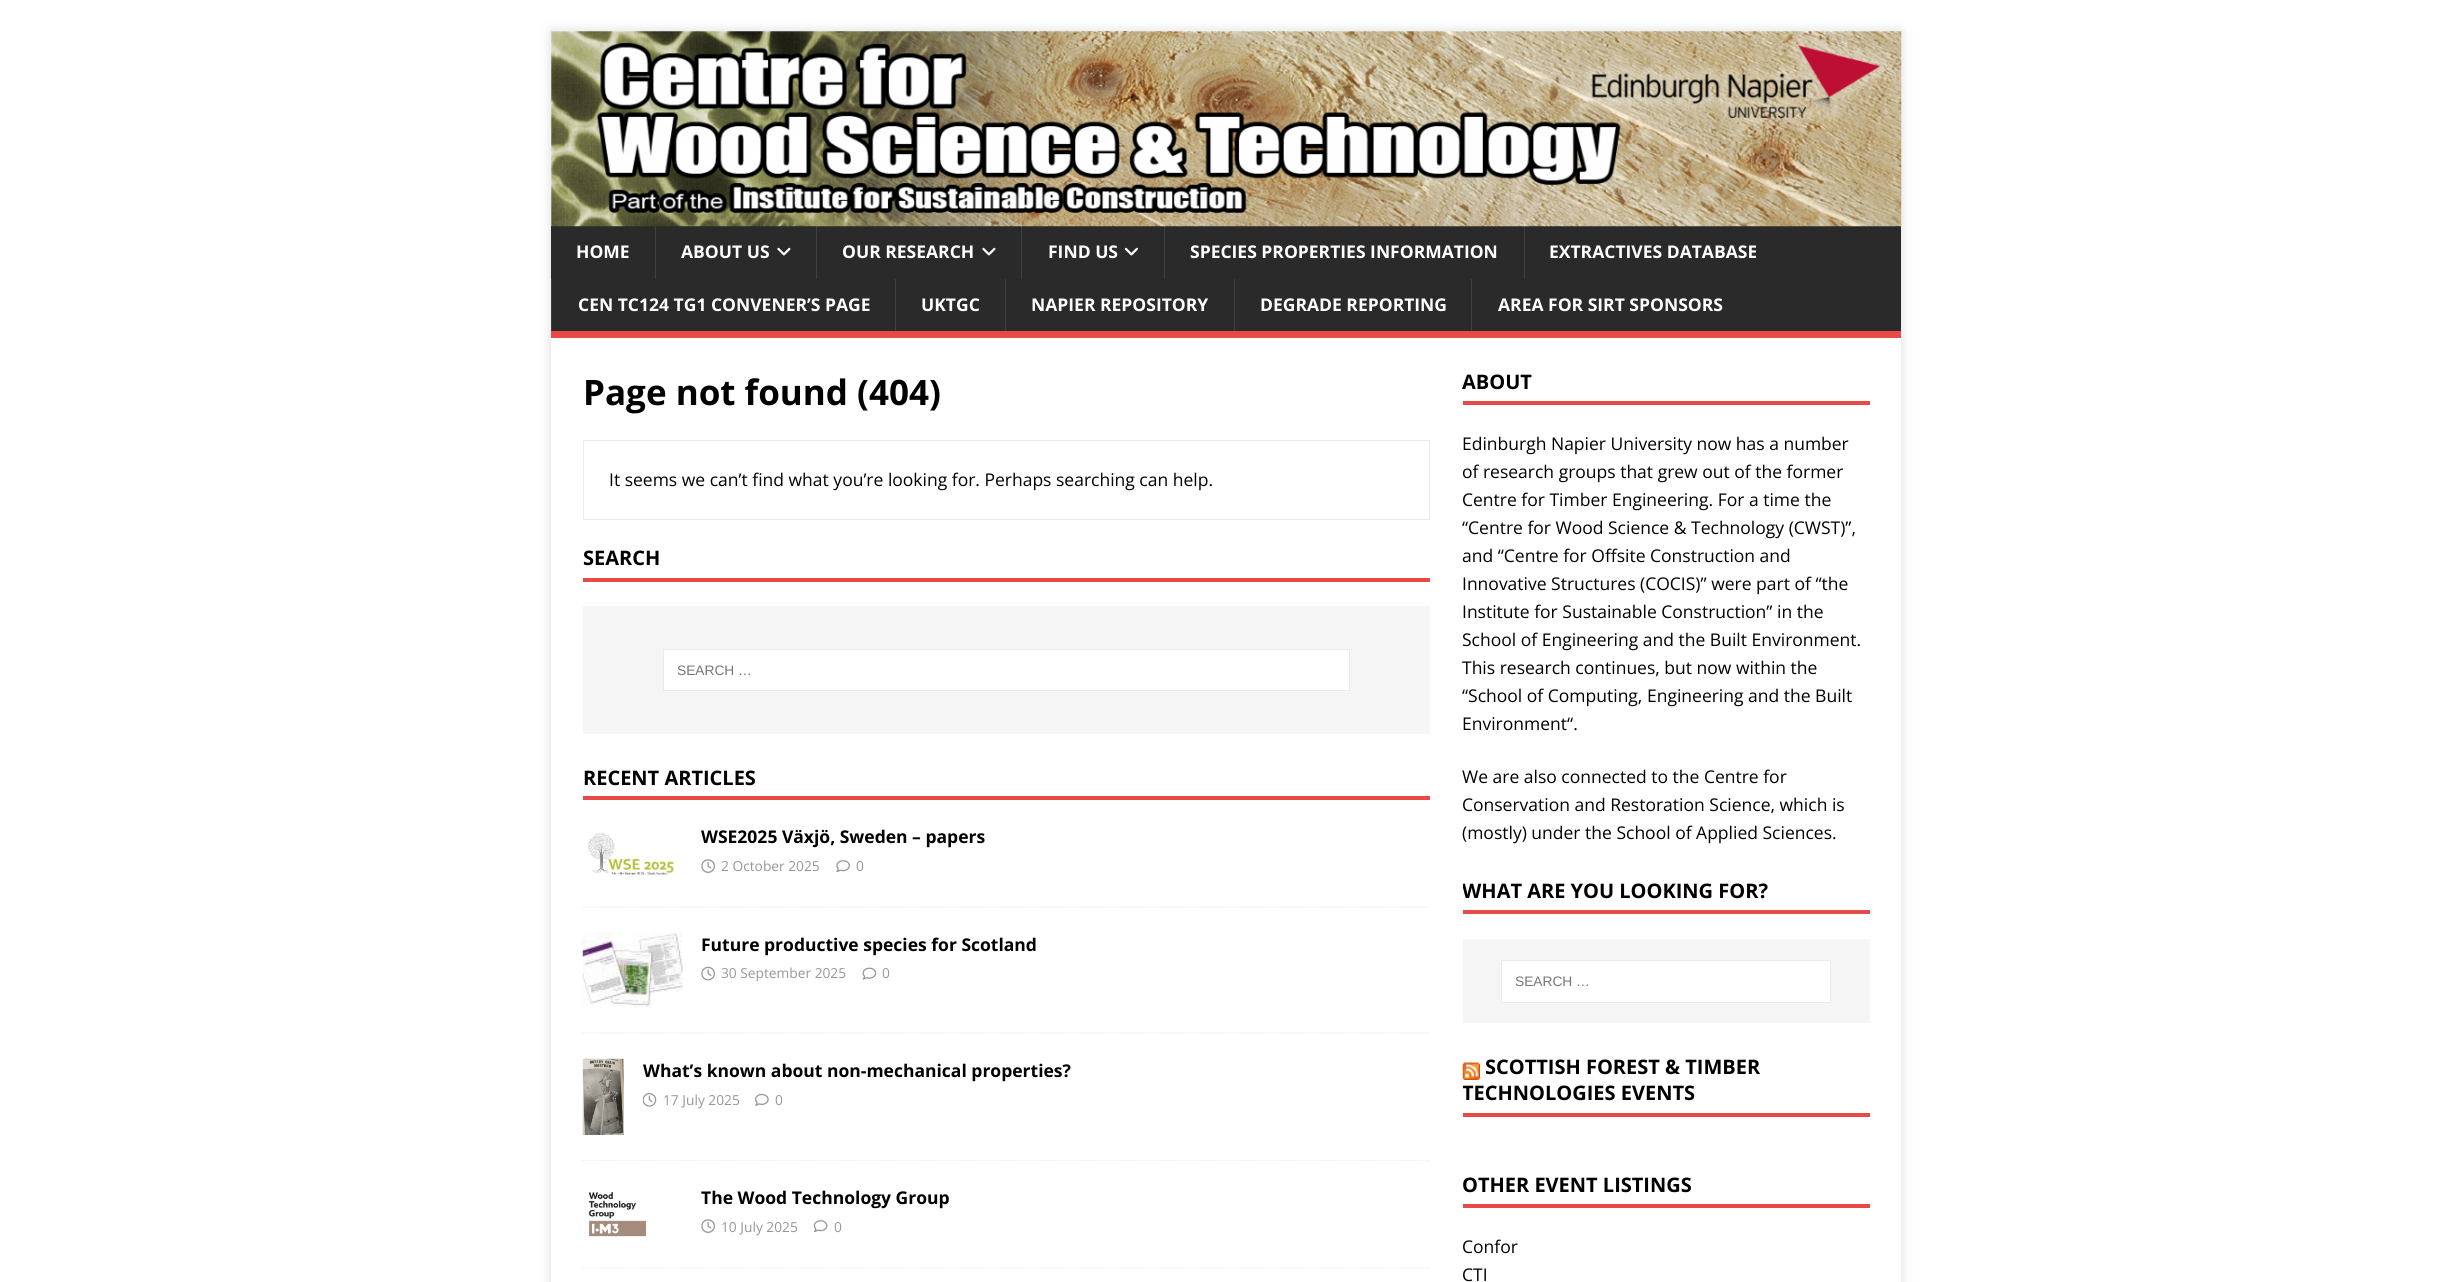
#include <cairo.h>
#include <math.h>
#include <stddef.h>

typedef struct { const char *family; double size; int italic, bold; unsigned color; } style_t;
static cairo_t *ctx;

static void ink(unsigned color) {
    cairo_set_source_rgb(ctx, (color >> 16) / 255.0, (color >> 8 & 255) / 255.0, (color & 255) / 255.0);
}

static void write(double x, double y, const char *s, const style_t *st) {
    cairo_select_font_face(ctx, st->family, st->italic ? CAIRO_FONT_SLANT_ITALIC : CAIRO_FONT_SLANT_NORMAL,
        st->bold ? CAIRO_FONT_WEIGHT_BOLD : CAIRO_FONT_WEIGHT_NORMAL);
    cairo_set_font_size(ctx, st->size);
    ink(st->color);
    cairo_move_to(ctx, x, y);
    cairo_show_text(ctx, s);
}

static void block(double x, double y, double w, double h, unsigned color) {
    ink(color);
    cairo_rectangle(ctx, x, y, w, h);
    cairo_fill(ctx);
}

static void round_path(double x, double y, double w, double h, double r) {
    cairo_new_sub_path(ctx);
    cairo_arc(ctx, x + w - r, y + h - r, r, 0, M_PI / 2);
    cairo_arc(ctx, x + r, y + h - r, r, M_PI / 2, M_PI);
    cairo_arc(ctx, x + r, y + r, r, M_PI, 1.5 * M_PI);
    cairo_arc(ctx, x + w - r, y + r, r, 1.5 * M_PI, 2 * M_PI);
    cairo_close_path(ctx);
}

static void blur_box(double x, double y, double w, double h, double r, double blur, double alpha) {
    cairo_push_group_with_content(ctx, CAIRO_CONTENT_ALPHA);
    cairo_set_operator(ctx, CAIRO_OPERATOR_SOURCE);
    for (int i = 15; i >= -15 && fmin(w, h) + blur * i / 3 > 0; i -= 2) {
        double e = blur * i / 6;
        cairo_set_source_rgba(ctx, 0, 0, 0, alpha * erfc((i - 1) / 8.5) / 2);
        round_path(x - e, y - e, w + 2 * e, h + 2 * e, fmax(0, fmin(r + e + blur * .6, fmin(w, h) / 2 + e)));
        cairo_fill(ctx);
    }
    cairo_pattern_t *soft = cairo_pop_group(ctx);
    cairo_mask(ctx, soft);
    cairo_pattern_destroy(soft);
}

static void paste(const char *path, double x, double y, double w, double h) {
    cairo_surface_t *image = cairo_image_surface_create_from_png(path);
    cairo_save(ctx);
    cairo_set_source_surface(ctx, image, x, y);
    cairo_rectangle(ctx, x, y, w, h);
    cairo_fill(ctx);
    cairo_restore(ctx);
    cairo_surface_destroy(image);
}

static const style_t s1 = {"Open Sans", 17.5, 0, 1, 0xffffff};
static const style_t s2 = {"Open Sans", 35, 0, 1, 0x000000};
static const style_t s3 = {"Open Sans", 17.5, 0, 0, 0x000000};
static const style_t s4 = {"Open Sans", 20, 0, 1, 0x000000};
static const style_t s5 = {"Liberation Sans", 13.75, 0, 0, 0x757575};
static const style_t s6 = {"Open Sans", 17.5, 0, 1, 0x000000};
static const style_t s7 = {"Open Sans", 13.75, 0, 0, 0x979797};

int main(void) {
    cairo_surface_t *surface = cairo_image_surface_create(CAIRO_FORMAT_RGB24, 2452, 1282);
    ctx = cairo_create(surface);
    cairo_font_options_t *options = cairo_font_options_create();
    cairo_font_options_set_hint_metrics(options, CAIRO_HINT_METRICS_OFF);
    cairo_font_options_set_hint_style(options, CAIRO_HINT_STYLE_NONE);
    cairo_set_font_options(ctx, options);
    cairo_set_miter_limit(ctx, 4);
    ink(0xffffff);
    cairo_paint(ctx);
    ink(0x323232);
    blur_box(551, 31, 1350, 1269, 0, 6, 0.17);
    block(551, 31, 1350, 195, 0xffffff);
    block(551, 226, 1350, 105, 0x2a2a2a);
    paste("pic1.png", 551, 31, 1351, 196);
    block(551, 331, 1350, 7, 0xe64946);
    write(576, 258, "HOME", &s1);
    cairo_set_source_rgba(ctx, 1, 1, 1, 0.1);
    cairo_rectangle(ctx, 655, 226, 1, 53);
    cairo_fill(ctx);
    write(681, 258, "ABOUT US", &s1);
    paste("pic2.png", 777, 247, 14, 9);
    cairo_set_source_rgba(ctx, 1, 1, 1, 0.1);
    cairo_rectangle(ctx, 816, 226, 1, 53);
    cairo_fill(ctx);
    write(842, 258, "OUR RESEARCH", &s1);
    paste("pic2.png", 982, 247, 14, 9);
    cairo_set_source_rgba(ctx, 1, 1, 1, 0.1);
    cairo_rectangle(ctx, 1021, 226, 1, 53);
    cairo_fill(ctx);
    write(1048, 258, "FIND US", &s1);
    paste("pic3.png", 1124, 247, 14, 9);
    cairo_set_source_rgba(ctx, 1, 1, 1, 0.1);
    cairo_rectangle(ctx, 1164, 226, 1, 53);
    cairo_fill(ctx);
    write(1190, 258, "SPECIES PROPERTIES INFORMATION", &s1);
    cairo_set_source_rgba(ctx, 1, 1, 1, 0.1);
    cairo_rectangle(ctx, 1524, 226, 1, 53);
    cairo_fill(ctx);
    write(1549, 258, "EXTRACTIVES DATABASE", &s1);
    block(551, 279, 1, 52, 0x3f3f3f);
    write(578, 311, "CEN TC124 TG1 CONVENER’S PAGE", &s1);
    block(895, 279, 1, 52, 0x3f3f3f);
    write(921, 311, "UKTGC", &s1);
    block(1005, 279, 1, 52, 0x3f3f3f);
    write(1031, 311, "NAPIER REPOSITORY", &s1);
    block(1234, 279, 1, 52, 0x3f3f3f);
    write(1260, 311, "DEGRADE REPORTING", &s1);
    block(1471, 279, 1, 52, 0x3f3f3f);
    write(1498, 311, "AREA FOR SIRT SPONSORS", &s1);
    block(551, 338, 1350, 944, 0xffffff);
    write(583, 405, "Page not found (404)", &s2);
    cairo_rectangle(ctx, 583.5, 440.5, 846, 79);
    ink(0xebebeb);
    cairo_set_line_width(ctx, 1);
    cairo_stroke(ctx);
    write(609, 486, "It seems we can’t find what you’re looking for. Perhaps searching can help.", &s3);
    block(583, 578, 847, 4, 0xe64946);
    write(583, 565, "SEARCH", &s4);
    block(583, 606, 847, 128, 0xf5f5f5);
    ink(0xffffff);
    cairo_rectangle(ctx, 663.5, 649.5, 686, 41);
    cairo_fill_preserve(ctx);
    ink(0xebebeb);
    cairo_stroke(ctx);
    write(677, 675, "SEARCH …", &s5);
    block(583, 796, 847, 4, 0xe64946);
    write(583, 785, "RECENT ARTICLES", &s4);
    cairo_new_path(ctx);
    cairo_move_to(ctx, 582.5, 907);
    cairo_line_to(ctx, 1430, 907);
    ink(0xebebeb);
    cairo_set_line_width(ctx, 1.2);
    cairo_set_dash(ctx, (double[]){1.25, 1.25}, 2, 0);
    cairo_stroke(ctx);
    paste("pic4.png", 586, 831, 88, 46);
    write(701, 843, "WSE2025 Växjö, Sweden – papers", &s6);
    paste("pic5.png", 701, 859, 14, 14);
    write(721, 871, "2 October 2025", &s7);
    paste("pic6.png", 836, 860, 14, 13);
    write(856, 871, "0", &s7);
    cairo_new_path(ctx);
    cairo_move_to(ctx, 582.5, 1033);
    cairo_line_to(ctx, 1430, 1033);
    ink(0xebebeb);
    cairo_stroke(ctx);
    paste("pic7.png", 582, 932, 101, 76);
    write(701, 951, "Future productive species for Scotland", &s6);
    paste("pic8.png", 701, 966, 14, 15);
    write(721, 978, "30 September 2025", &s7);
    paste("pic9.png", 862, 967, 15, 13);
    write(882, 978, "0", &s7);
    cairo_new_path(ctx);
    cairo_move_to(ctx, 582.5, 1160.5);
    cairo_line_to(ctx, 1430, 1160.5);
    ink(0xebebeb);
    cairo_stroke(ctx);
    paste("pic10.png", 582, 1058, 42, 77);
    write(643, 1077, "What’s known about non-mechanical properties?", &s6);
    paste("pic11.png", 643, 1093, 14, 14);
    write(663, 1105, "17 July 2025", &s7);
    paste("pic12.png", 755, 1093, 14, 13);
    write(775, 1105, "0", &s7);
    cairo_new_path(ctx);
    cairo_move_to(ctx, 582.5, 1268);
    cairo_line_to(ctx, 1430, 1268);
    ink(0xebebeb);
    cairo_stroke(ctx);
    paste("pic13.png", 588, 1192, 59, 45);
    write(701, 1204, "The Wood Technology Group", &s6);
    paste("pic5.png", 701, 1219, 14, 14);
    write(721, 1232, "10 July 2025", &s7);
    paste("pic14.png", 813, 1220, 15, 13);
    write(834, 1232, "0", &s7);
    block(1463, 401, 407, 4, 0xe64946);
    write(1462, 389, "ABOUT", &s4);
    write(1462, 450, "Edinburgh Napier University now has a number", &s3);
    write(1462, 478, "of research groups that grew out of the former", &s3);
    write(1462, 506, "Centre for Timber Engineering. For a time the", &s3);
    write(1462, 534, "“Centre for Wood Science & Technology (CWST)”,", &s3);
    write(1462, 562, "and “Centre for Offsite Construction and", &s3);
    write(1462, 590, "Innovative Structures (COCIS)” were part of “the", &s3);
    write(1462, 618, "Institute for Sustainable Construction” in the", &s3);
    write(1462, 646, "School of Engineering and the Built Environment.", &s3);
    write(1462, 674, "This research continues, but now within the", &s3);
    write(1462, 702, "“School of Computing, Engineering and the Built", &s3);
    write(1462, 730, "Environment“.", &s3);
    write(1462, 783, "We are also connected to the Centre for", &s3);
    write(1462, 811, "Conservation and Restoration Science, which is", &s3);
    write(1462, 839, "(mostly) under the School of Applied Sciences.", &s3);
    block(1463, 910, 407, 4, 0xe64946);
    cairo_save(ctx);
    cairo_rectangle(ctx, 1463, 879, 407, 144);
    cairo_clip(ctx);
    write(1462, 898, "WHAT ARE YOU LOOKING FOR?", &s4);
    cairo_restore(ctx);
    block(1463, 939, 407, 84, 0xf5f5f5);
    ink(0xffffff);
    cairo_rectangle(ctx, 1501.5, 960.5, 329, 42);
    cairo_fill_preserve(ctx);
    ink(0xebebeb);
    cairo_set_line_width(ctx, 1);
    cairo_set_dash(ctx, NULL, 0, 0);
    cairo_stroke(ctx);
    write(1515, 986, "SEARCH …", &s5);
    block(1463, 1113, 407, 4, 0xe64946);
    paste("pic15.png", 1462, 1062, 18, 18);
    write(1485, 1074, "SCOTTISH FOREST & TIMBER", &s4);
    cairo_save(ctx);
    cairo_rectangle(ctx, 1463, 1054, 407, 87);
    cairo_clip(ctx);
    write(1462, 1100, "TECHNOLOGIES EVENTS", &s4);
    cairo_restore(ctx);
    block(1463, 1204, 407, 4, 0xe64946);
    write(1462, 1192, "OTHER EVENT LISTINGS", &s4);
    write(1462, 1253, "Confor", &s3);
    write(1462, 1281, "CTI", &s3);
    cairo_surface_write_to_png(surface, "screenshot.png");
    cairo_font_options_destroy(options);
    cairo_destroy(ctx);
    cairo_surface_destroy(surface);
    return 0;
}
